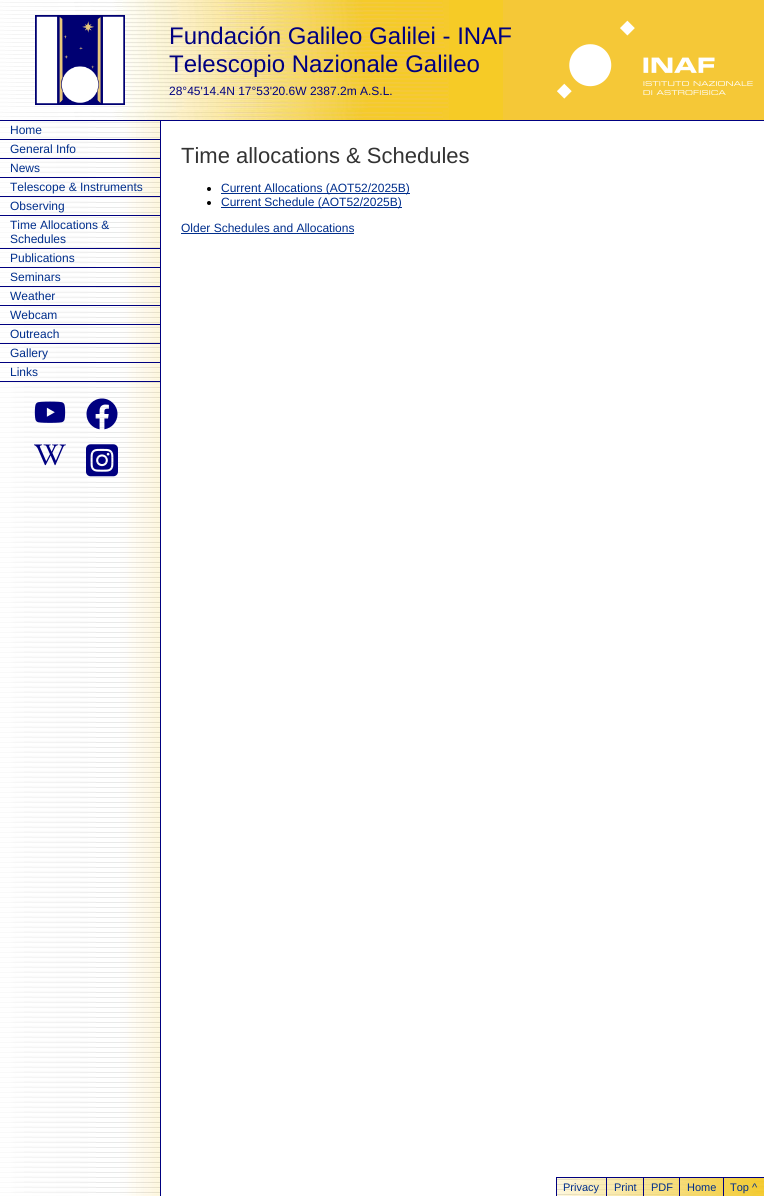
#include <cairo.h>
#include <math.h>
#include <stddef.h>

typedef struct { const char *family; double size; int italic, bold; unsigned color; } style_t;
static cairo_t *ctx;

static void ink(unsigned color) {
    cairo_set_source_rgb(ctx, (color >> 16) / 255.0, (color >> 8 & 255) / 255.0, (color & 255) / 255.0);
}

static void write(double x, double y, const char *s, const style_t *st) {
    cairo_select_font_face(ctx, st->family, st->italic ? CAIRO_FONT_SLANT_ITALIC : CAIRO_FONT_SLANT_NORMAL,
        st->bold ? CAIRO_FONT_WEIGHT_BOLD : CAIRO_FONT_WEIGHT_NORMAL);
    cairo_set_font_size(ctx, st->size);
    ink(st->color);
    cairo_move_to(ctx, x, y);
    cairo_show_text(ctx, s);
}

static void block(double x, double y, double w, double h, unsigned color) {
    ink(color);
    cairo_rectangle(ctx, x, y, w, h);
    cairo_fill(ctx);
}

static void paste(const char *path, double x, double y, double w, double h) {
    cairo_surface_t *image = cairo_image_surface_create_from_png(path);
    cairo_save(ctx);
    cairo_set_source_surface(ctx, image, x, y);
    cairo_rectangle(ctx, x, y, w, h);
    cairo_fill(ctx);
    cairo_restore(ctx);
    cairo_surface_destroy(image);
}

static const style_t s1 = {"Liberation Sans", 24, 0, 0, 0x000080};
static const style_t s2 = {"Liberation Sans", 12, 0, 0, 0x000080};
static const style_t s3 = {"Liberation Sans", 12, 0, 0, 0x002e8c};
static const style_t s4 = {"Liberation Sans", 22, 0, 0, 0x333333};
static const style_t s5 = {"Liberation Sans", 11, 0, 0, 0x002e8c};

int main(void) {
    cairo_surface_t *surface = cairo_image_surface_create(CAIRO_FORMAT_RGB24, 764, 1196);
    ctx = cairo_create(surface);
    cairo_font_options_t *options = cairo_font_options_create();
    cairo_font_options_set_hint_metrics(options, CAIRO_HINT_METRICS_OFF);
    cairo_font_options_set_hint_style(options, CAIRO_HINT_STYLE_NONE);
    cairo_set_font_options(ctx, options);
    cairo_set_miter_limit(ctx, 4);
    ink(0xffffff);
    cairo_paint(ctx);
    block(503, 0, 261, 120, 0xf5c837);
    paste("pic1.png", 0, 0, 503, 120);
    block(0, 120, 764, 1, 0x000080);
    paste("pic2.png", 35, 15, 90, 90);
    write(169, 44, "Fundación Galileo Galilei - INAF", &s1);
    write(169, 72, "Telescopio Nazionale Galileo", &s1);
    write(169, 95, "28°45'14.4N 17°53'20.6W 2387.2m A.S.L.", &s2);
    paste("pic3.png", 557, 20, 196, 79);
    paste("pic4.png", 0, 121, 160, 1075);
    block(160, 121, 1, 1075, 0x000080);
    block(0, 139, 160, 1, 0x000080);
    write(10, 134, "Home", &s3);
    block(0, 158, 160, 1, 0x000080);
    write(10, 153, "General Info", &s3);
    block(0, 177, 160, 1, 0x000080);
    write(10, 172, "News", &s3);
    block(0, 196, 160, 1, 0x000080);
    write(10, 191, "Telescope & Instruments", &s3);
    block(0, 215, 160, 1, 0x000080);
    write(10, 210, "Observing", &s3);
    block(0, 248, 160, 1, 0x000080);
    write(10, 229, "Time Allocations &", &s3);
    write(10, 243, "Schedules", &s3);
    block(0, 267, 160, 1, 0x000080);
    write(10, 262, "Publications", &s3);
    block(0, 286, 160, 1, 0x000080);
    write(10, 281, "Seminars", &s3);
    block(0, 305, 160, 1, 0x000080);
    write(10, 300, "Weather", &s3);
    block(0, 324, 160, 1, 0x000080);
    write(10, 319, "Webcam", &s3);
    block(0, 343, 160, 1, 0x000080);
    write(10, 338, "Outreach", &s3);
    block(0, 362, 160, 1, 0x000080);
    write(10, 357, "Gallery", &s3);
    block(0, 381, 160, 1, 0x000080);
    write(10, 376, "Links", &s3);
    paste("pic5.png", 34, 401, 32, 22);
    paste("pic6.png", 86, 398, 32, 32);
    paste("pic7.png", 34, 444, 32, 22);
    paste("pic8.png", 86, 444, 32, 33);
    write(181, 163, "Time allocations & Schedules", &s4);
    ink(0x000000);
    cairo_new_path(ctx);
    cairo_arc(ctx, 209, 189, 2, 0, 2 * M_PI);
    cairo_fill(ctx);
    block(221, 193, 189, 1, 0x002e8c);
    write(221, 192, "Current Allocations (AOT52/2025B)", &s3);
    ink(0x000000);
    cairo_new_path(ctx);
    cairo_arc(ctx, 209, 203, 2, 0, 2 * M_PI);
    cairo_fill(ctx);
    block(221, 207, 181, 1, 0x002e8c);
    write(221, 206, "Current Schedule (AOT52/2025B)", &s3);
    write(181, 232, "Older Schedules and Allocations", &s3);
    block(181, 233, 173, 1, 0x002e8c);
    paste("pic9.png", 557, 1178, 207, 18);
    block(556, 1177, 208, 1, 0x000080);
    block(556, 1178, 1, 18, 0x000080);
    write(563, 1191, "Privacy", &s5);
    block(606, 1178, 1, 18, 0x000080);
    write(614, 1191, "Print", &s5);
    block(643, 1178, 1, 18, 0x000080);
    write(651, 1191, "PDF", &s5);
    block(679, 1178, 1, 18, 0x000080);
    write(687, 1191, "Home", &s5);
    block(723, 1178, 1, 18, 0x000080);
    write(730, 1191, "Top ^", &s5);
    cairo_surface_write_to_png(surface, "screenshot.png");
    cairo_font_options_destroy(options);
    cairo_destroy(ctx);
    cairo_surface_destroy(surface);
    return 0;
}
